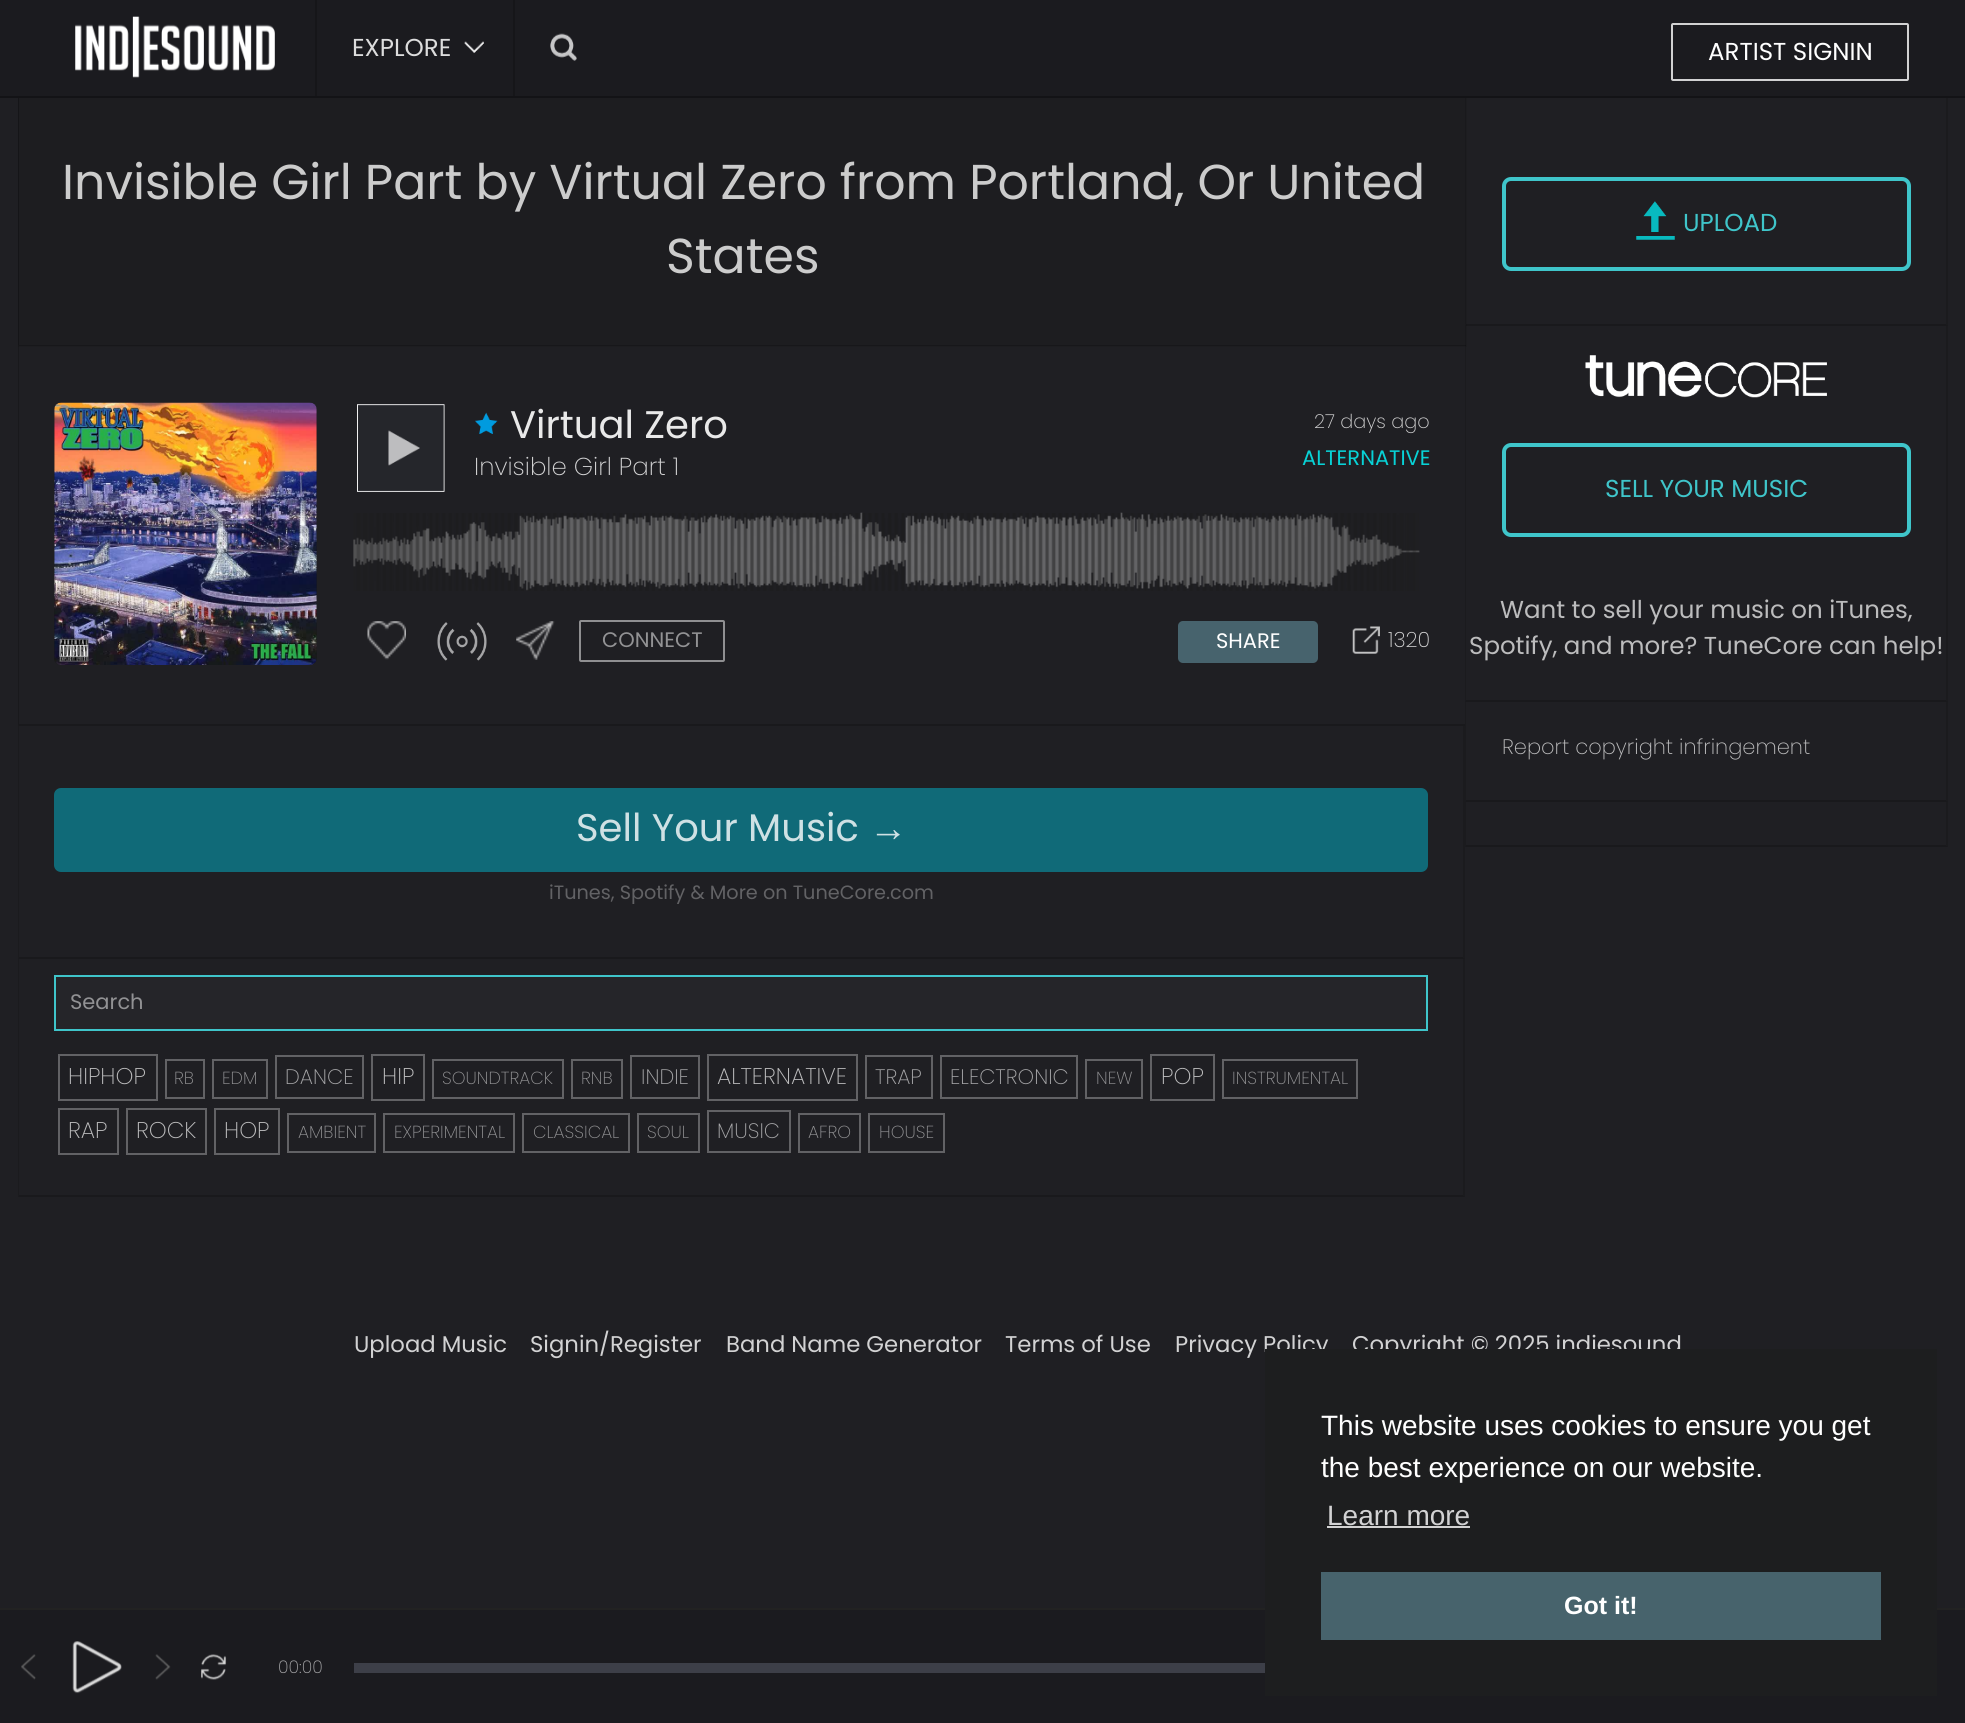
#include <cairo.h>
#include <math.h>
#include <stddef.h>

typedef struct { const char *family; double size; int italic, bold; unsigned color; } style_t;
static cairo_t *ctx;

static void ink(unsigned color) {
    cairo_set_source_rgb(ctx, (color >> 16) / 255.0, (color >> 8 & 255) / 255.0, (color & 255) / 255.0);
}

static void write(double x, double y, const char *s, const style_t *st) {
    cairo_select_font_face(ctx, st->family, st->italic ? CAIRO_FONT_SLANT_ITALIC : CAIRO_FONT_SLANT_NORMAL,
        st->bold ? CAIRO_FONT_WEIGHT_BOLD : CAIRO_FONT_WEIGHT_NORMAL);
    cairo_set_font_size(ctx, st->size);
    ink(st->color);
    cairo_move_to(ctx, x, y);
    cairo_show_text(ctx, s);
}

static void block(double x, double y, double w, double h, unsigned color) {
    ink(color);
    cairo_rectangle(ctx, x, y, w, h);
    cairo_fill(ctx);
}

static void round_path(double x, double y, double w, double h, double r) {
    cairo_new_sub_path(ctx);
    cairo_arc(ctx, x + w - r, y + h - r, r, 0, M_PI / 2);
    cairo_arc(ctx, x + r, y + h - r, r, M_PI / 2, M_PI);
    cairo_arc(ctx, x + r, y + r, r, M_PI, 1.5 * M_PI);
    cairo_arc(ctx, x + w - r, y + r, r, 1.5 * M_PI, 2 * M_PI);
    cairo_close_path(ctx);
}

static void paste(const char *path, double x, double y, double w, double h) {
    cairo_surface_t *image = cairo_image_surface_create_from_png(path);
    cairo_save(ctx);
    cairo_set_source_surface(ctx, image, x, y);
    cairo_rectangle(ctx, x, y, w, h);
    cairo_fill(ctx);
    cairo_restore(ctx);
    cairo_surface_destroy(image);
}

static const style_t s1 = {"Poppins", 24.5, 0, 0, 0xdddddd};
static const style_t s2 = {"Poppins", 24.5, 0, 0, 0xffffff};
static const style_t s3 = {"Poppins", 49, 0, 0, 0xcccccc};
static const style_t s4 = {"Poppins", 38.5, 0, 0, 0xe9e9e9};
static const style_t s5 = {"Poppins ExtraLight", 24.5, 0, 0, 0xd2d2d3};
static const style_t s6 = {"Poppins", 21, 0, 0, 0x08d2d6};
static const style_t s7 = {"Poppins ExtraLight", 19.25, 0, 0, 0xd2d2d3};
static const style_t s8 = {"Poppins", 21, 0, 0, 0x929294};
static const style_t s9 = {"Poppins", 21, 0, 0, 0xffffff};
static const style_t s10 = {"Poppins ExtraLight", 21, 0, 0, 0xd2d2d3};
static const style_t s11 = {"Poppins", 38.5, 0, 0, 0xcfe1e4};
static const style_t s12 = {"Liberation Sans", 38.5, 0, 0, 0xcfe1e4};
static const style_t s13 = {"Poppins", 19.25, 0, 0, 0x626265};
static const style_t s14 = {"Poppins ExtraLight", 22.75, 0, 0, 0xbcbcbd};
static const style_t s15 = {"Poppins ExtraLight", 17.5, 0, 0, 0x929294};
static const style_t s16 = {"Poppins ExtraLight", 21, 0, 0, 0xa5a5a7};
static const style_t s17 = {"Poppins", 24.5, 0, 0, 0x3fc5ca};
static const style_t s18 = {"Poppins", 24.5, 0, 0, 0xbcbcbd};
static const style_t s19 = {"Poppins ExtraLight", 21, 0, 0, 0xbcbcbd};
static const style_t s20 = {"Poppins", 22.75, 0, 0, 0xd2d2d3};
static const style_t s21 = {"Liberation Sans", 28, 0, 0, 0xffffff};
static const style_t s22 = {"Liberation Sans", 28, 0, 0, 0xd2d2d3};
static const style_t s23 = {"Liberation Sans", 25, 0, 1, 0xffffff};
static const style_t s24 = {"Poppins ExtraLight", 17.5, 0, 0, 0xa5a5a7};

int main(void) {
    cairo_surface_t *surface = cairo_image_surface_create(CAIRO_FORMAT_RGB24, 1965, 1723);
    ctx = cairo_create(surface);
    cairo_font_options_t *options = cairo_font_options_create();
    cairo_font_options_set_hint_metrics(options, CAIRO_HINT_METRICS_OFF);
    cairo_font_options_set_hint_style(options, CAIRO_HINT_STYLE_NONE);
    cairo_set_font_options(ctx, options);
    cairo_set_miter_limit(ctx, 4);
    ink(0x1f1f23);
    cairo_paint(ctx);
    block(0, 0, 1965, 96, 0x1b1b1f);
    block(18, 98, 1449, 249, 0x1d1d20);
    ink(0x17171a);
    cairo_new_path(ctx);
    cairo_move_to(ctx, 1466, 346);
    cairo_line_to(ctx, 18, 346);
    cairo_line_to(ctx, 19, 345);
    cairo_line_to(ctx, 1466, 345);
    cairo_close_path(ctx);
    cairo_fill(ctx);
    cairo_set_source_rgba(ctx, 0, 0, 0, 0.26);
    cairo_new_path(ctx);
    cairo_move_to(ctx, 18, 346);
    cairo_line_to(ctx, 18, 96);
    cairo_line_to(ctx, 19, 96);
    cairo_line_to(ctx, 19, 345);
    cairo_close_path(ctx);
    cairo_fill(ctx);
    ink(0x1b1b1e);
    cairo_new_path(ctx);
    cairo_move_to(ctx, 1948, 96);
    cairo_line_to(ctx, 1948, 326);
    cairo_line_to(ctx, 1946, 324);
    cairo_line_to(ctx, 1946, 96);
    cairo_close_path(ctx);
    cairo_fill(ctx);
    cairo_set_source_rgba(ctx, 0, 0, 0, 0.2);
    cairo_new_path(ctx);
    cairo_move_to(ctx, 1948, 326);
    cairo_line_to(ctx, 1465, 326);
    cairo_line_to(ctx, 1466, 324);
    cairo_line_to(ctx, 1946, 324);
    cairo_close_path(ctx);
    cairo_fill(ctx);
    ink(0x19191c);
    cairo_new_path(ctx);
    cairo_move_to(ctx, 1465, 326);
    cairo_line_to(ctx, 1465, 96);
    cairo_line_to(ctx, 1466, 96);
    cairo_line_to(ctx, 1466, 324);
    cairo_close_path(ctx);
    cairo_fill(ctx);
    block(0, 96, 1965, 2, 0x131316);
    paste("pic1.png", 75, 16, 200, 62);
    block(513, 0, 2, 96, 0x161619);
    block(315, 0, 2, 96, 0x161619);
    write(352, 56, "EXPLORE", &s1);
    paste("pic2.png", 464, 41, 20, 12);
    paste("pic3.png", 550, 33, 27, 28);
    round_path(1672, 24, 236, 56, 1);
    ink(0xd1d1d2);
    cairo_stroke(ctx);
    write(1708, 60, "ARTIST SIGNIN", &s2);
    write(62, 199, "Invisible Girl Part by Virtual Zero from Portland, Or United", &s3);
    write(666, 273, "States", &s3);
    ink(0x19191c);
    cairo_new_path(ctx);
    cairo_move_to(ctx, 1465, 726);
    cairo_line_to(ctx, 18, 726);
    cairo_line_to(ctx, 19, 724);
    cairo_line_to(ctx, 1465, 724);
    cairo_close_path(ctx);
    cairo_fill(ctx);
    cairo_set_source_rgba(ctx, 0, 0, 0, 0.2);
    cairo_new_path(ctx);
    cairo_move_to(ctx, 18, 726);
    cairo_line_to(ctx, 18, 346);
    cairo_line_to(ctx, 19, 346);
    cairo_line_to(ctx, 19, 724);
    cairo_close_path(ctx);
    cairo_fill(ctx);
    ink(0x19191c);
    round_path(54, 403, 263, 262, 7);
    cairo_fill(ctx);
    paste("pic4.png", 54, 402, 263, 263);
    paste("pic5.png", 357, 404, 88, 88);
    paste("pic6.png", 475, 412, 23, 22);
    write(510, 438, "Virtual Zero", &s4);
    write(474, 475, "Invisible Girl Part 1", &s5);
    write(1302, 465, "ALTERNATIVE", &s6);
    write(1314, 428, "27 days ago", &s7);
    paste("pic7.png", 353, 512, 1067, 79);
    paste("pic8.png", 353, 513, 1066, 78);
    paste("pic9.png", 367, 621, 39, 39);
    paste("pic10.png", 437, 622, 50, 39);
    paste("pic11.png", 516, 621, 39, 39);
    round_path(580, 621, 144, 40, 1);
    ink(0x8f8f91);
    cairo_stroke(ctx);
    write(602, 647, "CONNECT", &s8);
    ink(0x47636d);
    round_path(1178, 621, 140, 42, 5);
    cairo_fill(ctx);
    write(1216, 648, "SHARE", &s9);
    paste("pic12.png", 1352, 626, 28, 28);
    write(1388, 647, "1320", &s10);
    ink(0x1b1b1e);
    cairo_new_path(ctx);
    cairo_move_to(ctx, 1465, 726);
    cairo_line_to(ctx, 1465, 959);
    cairo_line_to(ctx, 1463, 957);
    cairo_line_to(ctx, 1463, 726);
    cairo_close_path(ctx);
    cairo_fill(ctx);
    cairo_set_source_rgba(ctx, 0, 0, 0, 0.2);
    cairo_new_path(ctx);
    cairo_move_to(ctx, 1465, 959);
    cairo_line_to(ctx, 18, 959);
    cairo_line_to(ctx, 19, 957);
    cairo_line_to(ctx, 1463, 957);
    cairo_close_path(ctx);
    cairo_fill(ctx);
    ink(0x1b1b1e);
    cairo_new_path(ctx);
    cairo_move_to(ctx, 18, 959);
    cairo_line_to(ctx, 18, 726);
    cairo_line_to(ctx, 19, 726);
    cairo_line_to(ctx, 19, 957);
    cairo_close_path(ctx);
    cairo_fill(ctx);
    ink(0x106a78);
    round_path(54, 788, 1374, 84, 7);
    cairo_fill(ctx);
    write(576, 841, "Sell Your Music", &s11);
    write(869, 841, "→", &s12);
    write(549, 899, "iTunes, Spotify & More on TuneCore.com", &s13);
    ink(0x1b1b1e);
    cairo_new_path(ctx);
    cairo_move_to(ctx, 1465, 959);
    cairo_line_to(ctx, 1465, 1197);
    cairo_line_to(ctx, 1463, 1195);
    cairo_line_to(ctx, 1463, 959);
    cairo_close_path(ctx);
    cairo_fill(ctx);
    cairo_set_source_rgba(ctx, 0, 0, 0, 0.2);
    cairo_new_path(ctx);
    cairo_move_to(ctx, 1465, 1197);
    cairo_line_to(ctx, 18, 1197);
    cairo_line_to(ctx, 19, 1195);
    cairo_line_to(ctx, 1463, 1195);
    cairo_close_path(ctx);
    cairo_fill(ctx);
    ink(0x1b1b1e);
    cairo_new_path(ctx);
    cairo_move_to(ctx, 18, 1197);
    cairo_line_to(ctx, 18, 959);
    cairo_line_to(ctx, 19, 959);
    cairo_line_to(ctx, 19, 1195);
    cairo_close_path(ctx);
    cairo_fill(ctx);
    ink(0x252529);
    cairo_rectangle(ctx, 55, 976, 1372, 54);
    cairo_fill_preserve(ctx);
    ink(0x3fc5ca);
    cairo_stroke(ctx);
    write(70, 1009, "Search", &s8);
    cairo_rectangle(ctx, 59, 1055, 98, 45);
    ink(0x626265);
    cairo_stroke(ctx);
    write(68, 1084, "HIPHOP", &s14);
    cairo_rectangle(ctx, 166, 1060, 38, 38);
    ink(0x626265);
    cairo_stroke(ctx);
    write(174, 1084, "RB", &s15);
    cairo_rectangle(ctx, 213, 1060, 54, 38);
    ink(0x626265);
    cairo_stroke(ctx);
    write(222, 1084, "EDM", &s15);
    cairo_rectangle(ctx, 276, 1056, 87, 42);
    ink(0x626265);
    cairo_stroke(ctx);
    write(285, 1084, "DANCE", &s16);
    cairo_rectangle(ctx, 372, 1055, 52, 45);
    ink(0x626265);
    cairo_stroke(ctx);
    write(382, 1084, "HIP", &s14);
    cairo_rectangle(ctx, 433, 1060, 130, 38);
    ink(0x626265);
    cairo_stroke(ctx);
    write(442, 1084, "SOUNDTRACK", &s15);
    cairo_rectangle(ctx, 572, 1060, 50, 38);
    ink(0x626265);
    cairo_stroke(ctx);
    write(581, 1084, "RNB", &s15);
    cairo_rectangle(ctx, 631, 1056, 68, 42);
    ink(0x626265);
    cairo_stroke(ctx);
    write(641, 1084, "INDIE", &s16);
    cairo_rectangle(ctx, 708, 1055, 149, 45);
    ink(0x626265);
    cairo_stroke(ctx);
    write(717, 1084, "ALTERNATIVE", &s14);
    cairo_rectangle(ctx, 866, 1056, 66, 42);
    ink(0x626265);
    cairo_stroke(ctx);
    write(875, 1084, "TRAP", &s16);
    cairo_rectangle(ctx, 941, 1056, 136, 42);
    ink(0x626265);
    cairo_stroke(ctx);
    write(950, 1084, "ELECTRONIC", &s16);
    cairo_rectangle(ctx, 1086, 1060, 56, 38);
    ink(0x626265);
    cairo_stroke(ctx);
    write(1096, 1084, "NEW", &s15);
    cairo_rectangle(ctx, 1151, 1055, 63, 45);
    ink(0x626265);
    cairo_stroke(ctx);
    write(1161, 1084, "POP", &s14);
    cairo_rectangle(ctx, 1223, 1060, 134, 38);
    ink(0x626265);
    cairo_stroke(ctx);
    write(1232, 1084, "INSTRUMENTAL", &s15);
    cairo_rectangle(ctx, 59, 1109, 59, 45);
    ink(0x626265);
    cairo_stroke(ctx);
    write(68, 1138, "RAP", &s14);
    cairo_rectangle(ctx, 127, 1109, 79, 45);
    ink(0x626265);
    cairo_stroke(ctx);
    write(136, 1138, "ROCK", &s14);
    cairo_rectangle(ctx, 215, 1109, 64, 45);
    ink(0x626265);
    cairo_stroke(ctx);
    write(224, 1138, "HOP", &s14);
    cairo_rectangle(ctx, 288, 1114, 87, 38);
    ink(0x626265);
    cairo_stroke(ctx);
    write(298, 1138, "AMBIENT", &s15);
    cairo_rectangle(ctx, 384, 1114, 130, 38);
    ink(0x626265);
    cairo_stroke(ctx);
    write(394, 1138, "EXPERIMENTAL", &s15);
    cairo_rectangle(ctx, 523, 1114, 106, 38);
    ink(0x626265);
    cairo_stroke(ctx);
    write(533, 1138, "CLASSICAL", &s15);
    cairo_rectangle(ctx, 638, 1114, 61, 38);
    ink(0x626265);
    cairo_stroke(ctx);
    write(647, 1138, "SOUL", &s15);
    cairo_rectangle(ctx, 708, 1111, 82, 41);
    ink(0x626265);
    cairo_stroke(ctx);
    write(717, 1138, "MUSIC", &s16);
    cairo_rectangle(ctx, 799, 1114, 61, 38);
    ink(0x626265);
    cairo_stroke(ctx);
    write(808, 1138, "AFRO", &s15);
    cairo_rectangle(ctx, 869, 1114, 75, 38);
    ink(0x626265);
    cairo_stroke(ctx);
    write(879, 1138, "HOUSE", &s15);
    round_path(1504, 179, 405, 90, 7);
    ink(0x3fc5ca);
    cairo_set_line_width(ctx, 4);
    cairo_stroke(ctx);
    paste("pic13.png", 1636, 201, 39, 39);
    write(1683, 231, "UPLOAD", &s17);
    ink(0x1b1b1e);
    cairo_new_path(ctx);
    cairo_move_to(ctx, 1948, 326);
    cairo_line_to(ctx, 1948, 702);
    cairo_line_to(ctx, 1946, 700);
    cairo_line_to(ctx, 1946, 326);
    cairo_close_path(ctx);
    cairo_fill(ctx);
    cairo_set_source_rgba(ctx, 0, 0, 0, 0.2);
    cairo_new_path(ctx);
    cairo_move_to(ctx, 1948, 702);
    cairo_line_to(ctx, 1465, 702);
    cairo_line_to(ctx, 1466, 700);
    cairo_line_to(ctx, 1946, 700);
    cairo_close_path(ctx);
    cairo_fill(ctx);
    cairo_set_source_rgba(ctx, 0, 0, 0, 0.14);
    cairo_new_path(ctx);
    cairo_move_to(ctx, 1465, 702);
    cairo_line_to(ctx, 1465, 326);
    cairo_line_to(ctx, 1466, 326);
    cairo_line_to(ctx, 1466, 700);
    cairo_close_path(ctx);
    cairo_fill(ctx);
    paste("pic14.png", 1585, 355, 242, 43);
    round_path(1504, 445, 405, 90, 7);
    ink(0x3fc5ca);
    cairo_stroke(ctx);
    write(1605, 497, "SELL YOUR MUSIC", &s17);
    write(1500, 618, "Want to sell your music on iTunes,", &s18);
    write(1469, 654, "Spotify, and more? TuneCore can help!", &s18);
    ink(0x1b1b1e);
    cairo_new_path(ctx);
    cairo_move_to(ctx, 1948, 702);
    cairo_line_to(ctx, 1948, 802);
    cairo_line_to(ctx, 1946, 800);
    cairo_line_to(ctx, 1946, 702);
    cairo_close_path(ctx);
    cairo_fill(ctx);
    cairo_set_source_rgba(ctx, 0, 0, 0, 0.2);
    cairo_new_path(ctx);
    cairo_move_to(ctx, 1948, 802);
    cairo_line_to(ctx, 1465, 802);
    cairo_line_to(ctx, 1466, 800);
    cairo_line_to(ctx, 1946, 800);
    cairo_close_path(ctx);
    cairo_fill(ctx);
    ink(0x1b1b1e);
    cairo_new_path(ctx);
    cairo_move_to(ctx, 1465, 802);
    cairo_line_to(ctx, 1465, 702);
    cairo_line_to(ctx, 1466, 702);
    cairo_line_to(ctx, 1466, 800);
    cairo_close_path(ctx);
    cairo_fill(ctx);
    write(1502, 754, "Report copyright infringement", &s19);
    ink(0x1b1b1e);
    cairo_new_path(ctx);
    cairo_move_to(ctx, 1948, 802);
    cairo_line_to(ctx, 1948, 847);
    cairo_line_to(ctx, 1946, 845);
    cairo_line_to(ctx, 1946, 802);
    cairo_close_path(ctx);
    cairo_fill(ctx);
    cairo_set_source_rgba(ctx, 0, 0, 0, 0.2);
    cairo_new_path(ctx);
    cairo_move_to(ctx, 1948, 847);
    cairo_line_to(ctx, 1465, 847);
    cairo_line_to(ctx, 1466, 845);
    cairo_line_to(ctx, 1946, 845);
    cairo_close_path(ctx);
    cairo_fill(ctx);
    ink(0x1b1b1e);
    cairo_new_path(ctx);
    cairo_move_to(ctx, 1465, 847);
    cairo_line_to(ctx, 1465, 802);
    cairo_line_to(ctx, 1466, 802);
    cairo_line_to(ctx, 1466, 845);
    cairo_close_path(ctx);
    cairo_fill(ctx);
    write(354, 1352, "Upload Music", &s20);
    write(530, 1352, "Signin/Register", &s20);
    write(726, 1352, "Band Name Generator", &s20);
    write(1005, 1352, "Terms of Use", &s20);
    write(1175, 1352, "Privacy Policy", &s20);
    write(1352, 1352, "Copyright © 2025 indiesound", &s20);
    block(0, 1610, 1965, 113, 0x1b1b1f);
    block(0, 1608, 1965, 2, 0x222222);
    block(1265, 1349, 672, 347, 0x1d1e1f);
    write(1321, 1435, "This website uses cookies to ensure you get", &s21);
    write(1321, 1477, "the best experience on our website.", &s21);
    write(1327, 1525, "Learn more", &s22);
    block(1327, 1526, 143, 2, 0xd2d2d2);
    block(1321, 1572, 560, 68, 0x47636c);
    write(1564, 1614, "Got it!", &s23);
    paste("pic15.png", 21, 1654, 15, 26);
    paste("pic16.png", 72, 1641, 50, 53);
    paste("pic17.png", 155, 1654, 16, 26);
    paste("pic18.png", 201, 1654, 26, 26);
    write(278, 1673, "00:00", &s24);
    block(354, 1663, 911, 10, 0x3d3f48);
    cairo_surface_write_to_png(surface, "screenshot.png");
    cairo_font_options_destroy(options);
    cairo_destroy(ctx);
    cairo_surface_destroy(surface);
    return 0;
}
